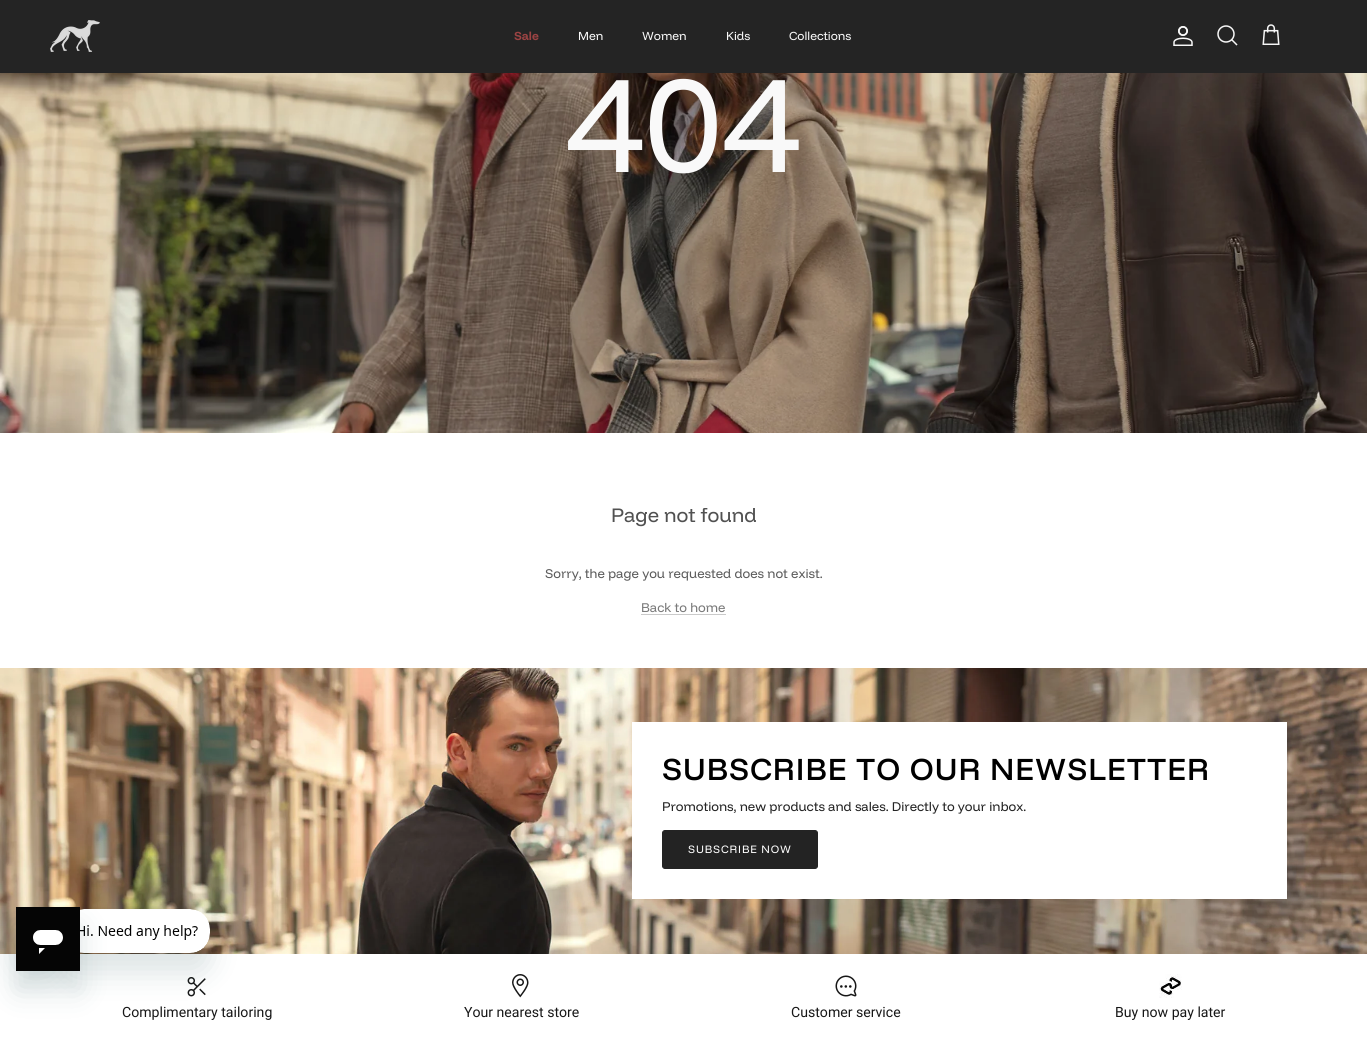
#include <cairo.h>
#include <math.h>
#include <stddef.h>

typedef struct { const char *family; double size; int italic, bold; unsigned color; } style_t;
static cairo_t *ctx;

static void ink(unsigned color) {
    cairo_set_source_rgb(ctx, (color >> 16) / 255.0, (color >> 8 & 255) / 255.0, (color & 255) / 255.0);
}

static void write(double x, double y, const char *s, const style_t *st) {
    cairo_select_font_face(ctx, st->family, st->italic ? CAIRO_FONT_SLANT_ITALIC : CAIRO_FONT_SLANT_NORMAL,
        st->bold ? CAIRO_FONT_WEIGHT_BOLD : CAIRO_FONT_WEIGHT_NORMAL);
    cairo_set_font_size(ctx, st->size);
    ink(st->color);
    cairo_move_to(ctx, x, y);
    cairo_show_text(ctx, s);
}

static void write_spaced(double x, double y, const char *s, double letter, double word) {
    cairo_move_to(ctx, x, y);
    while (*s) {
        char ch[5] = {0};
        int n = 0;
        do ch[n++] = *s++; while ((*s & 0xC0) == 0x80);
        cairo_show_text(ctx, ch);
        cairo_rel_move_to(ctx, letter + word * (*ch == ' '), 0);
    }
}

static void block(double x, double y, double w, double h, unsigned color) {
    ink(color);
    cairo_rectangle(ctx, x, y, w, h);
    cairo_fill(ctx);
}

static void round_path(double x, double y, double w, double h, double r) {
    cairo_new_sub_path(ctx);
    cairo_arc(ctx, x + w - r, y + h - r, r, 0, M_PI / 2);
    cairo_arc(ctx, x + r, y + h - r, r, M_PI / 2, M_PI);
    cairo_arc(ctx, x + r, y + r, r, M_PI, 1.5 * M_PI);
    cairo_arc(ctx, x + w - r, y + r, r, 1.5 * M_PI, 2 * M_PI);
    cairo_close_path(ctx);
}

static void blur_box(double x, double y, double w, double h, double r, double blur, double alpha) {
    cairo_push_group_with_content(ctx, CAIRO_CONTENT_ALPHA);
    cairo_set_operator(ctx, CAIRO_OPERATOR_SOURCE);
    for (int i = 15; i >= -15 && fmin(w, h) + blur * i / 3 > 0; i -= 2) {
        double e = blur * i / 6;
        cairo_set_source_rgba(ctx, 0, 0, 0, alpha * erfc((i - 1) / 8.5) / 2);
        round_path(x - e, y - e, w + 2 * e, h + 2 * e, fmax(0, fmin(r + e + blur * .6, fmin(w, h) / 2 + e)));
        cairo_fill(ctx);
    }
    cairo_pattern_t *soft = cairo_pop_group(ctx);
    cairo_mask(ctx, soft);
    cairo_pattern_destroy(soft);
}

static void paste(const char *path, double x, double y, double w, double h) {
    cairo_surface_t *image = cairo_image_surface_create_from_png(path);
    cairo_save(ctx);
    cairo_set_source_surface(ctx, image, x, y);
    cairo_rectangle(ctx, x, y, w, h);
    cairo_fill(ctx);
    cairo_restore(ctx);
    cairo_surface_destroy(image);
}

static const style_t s1 = {"Funnel Display", 12, 0, 1, 0x9c4343};
static const style_t s2 = {"Funnel Display", 12, 0, 0, 0xf9f9f9};
static const style_t s3 = {"Funnel Display", 136, 0, 0, 0xf9f9f9};
static const style_t s4 = {"Funnel Display", 20, 0, 0, 0x515151};
static const style_t s5 = {"Funnel Display", 13, 0, 0, 0x5c5c5c};
static const style_t s6 = {"Funnel Display", 13, 0, 0, 0x7a7a7a};
static const style_t s7 = {"Funnel Display", 13, 0, 0, 0x242424};
static const style_t s8 = {"Roboto", 14.1, 0, 0, 0x171717};

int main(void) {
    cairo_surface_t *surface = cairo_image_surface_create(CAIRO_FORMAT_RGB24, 1367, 1041);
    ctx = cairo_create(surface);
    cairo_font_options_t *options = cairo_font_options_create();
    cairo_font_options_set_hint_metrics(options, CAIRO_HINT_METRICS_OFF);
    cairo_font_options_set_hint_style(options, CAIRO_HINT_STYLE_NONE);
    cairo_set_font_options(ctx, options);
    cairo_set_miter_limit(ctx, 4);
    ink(0xffffff);
    cairo_paint(ctx);
    block(0, 0, 1367, 73, 0x242424);
    paste("pic1.png", 50, 20, 50, 32);
    write(514, 40, "Sale", &s1);
    write(578, 40, "Men", &s2);
    write(642, 40, "Women", &s2);
    write(726, 40, "Kids", &s2);
    write(789, 40, "Collections", &s2);
    paste("pic2.png", 1173, 26, 20, 20);
    cairo_arc(ctx, 1226, 34, 8, 0, 2 * M_PI);
    ink(0xf7f7f7);
    cairo_set_line_width(ctx, 1.5);
    cairo_stroke(ctx);
    cairo_new_path(ctx);
    cairo_move_to(ctx, 1232, 40);
    cairo_line_to(ctx, 1236.5, 44.5);
    cairo_set_line_cap(ctx, CAIRO_LINE_CAP_SQUARE);
    cairo_stroke(ctx);
    paste("pic3.png", 1262, 24, 18, 21);
    paste("pic4.png", 0, 73, 1367, 360);
    write(566, 172, "404", &s3);
    write(611, 522, "Page not found", &s4);
    write(545, 578, "Sorry, the page you requested does not exist.", &s5);
    write(641, 612, "Back to home", &s6);
    block(641, 614, 85, 1, 0xcacaca);
    paste("pic5.png", 0, 668, 1367, 286);
    block(632, 722, 655, 177, 0xffffff);
    cairo_select_font_face(ctx, "Funnel Display Medium", CAIRO_FONT_SLANT_NORMAL, CAIRO_FONT_WEIGHT_NORMAL);
    cairo_set_font_size(ctx, 31.25);
    ink(0x000000);
    write_spaced(662, 780, "SUBSCRIBE TO OUR NEWSLETTER", 1, 0);
    write(662, 811, "Promotions, new products and sales. Directly to your inbox.", &s7);
    ink(0x232323);
    round_path(662.5, 830.5, 155, 38, 2.5);
    cairo_fill_preserve(ctx);
    cairo_set_line_width(ctx, 1);
    cairo_set_line_cap(ctx, CAIRO_LINE_CAP_BUTT);
    cairo_stroke(ctx);
    cairo_set_font_size(ctx, 11);
    ink(0xffffff);
    write_spaced(688, 853, "SUBSCRIBE NOW", 0.9, 0);
    paste("pic6.png", 187, 977, 19, 20);
    write(122, 1017, "Complimentary tailoring", &s8);
    paste("pic7.png", 512, 974, 17, 24);
    write(464, 1017, "Your nearest store", &s8);
    paste("pic8.png", 835, 975, 22, 22);
    write(791, 1017, "Customer service", &s8);
    paste("pic9.png", 1159, 974, 23, 24);
    write(1115, 1017, "Buy now pay later", &s8);
    ink(0x17494d);
    blur_box(64, 929, 146, 44, 20, 15, 0.15);
    blur_box(16, 933, 40, 40, 20, 15, 0.15);
    paste("pic11.png", 80, 909, 130, 44);
    blur_box(16, 927, 64, 64, 0, 15, 0.15);
    paste("pic10.png", 16, 907, 64, 64);
    cairo_surface_write_to_png(surface, "screenshot.png");
    cairo_font_options_destroy(options);
    cairo_destroy(ctx);
    cairo_surface_destroy(surface);
    return 0;
}
